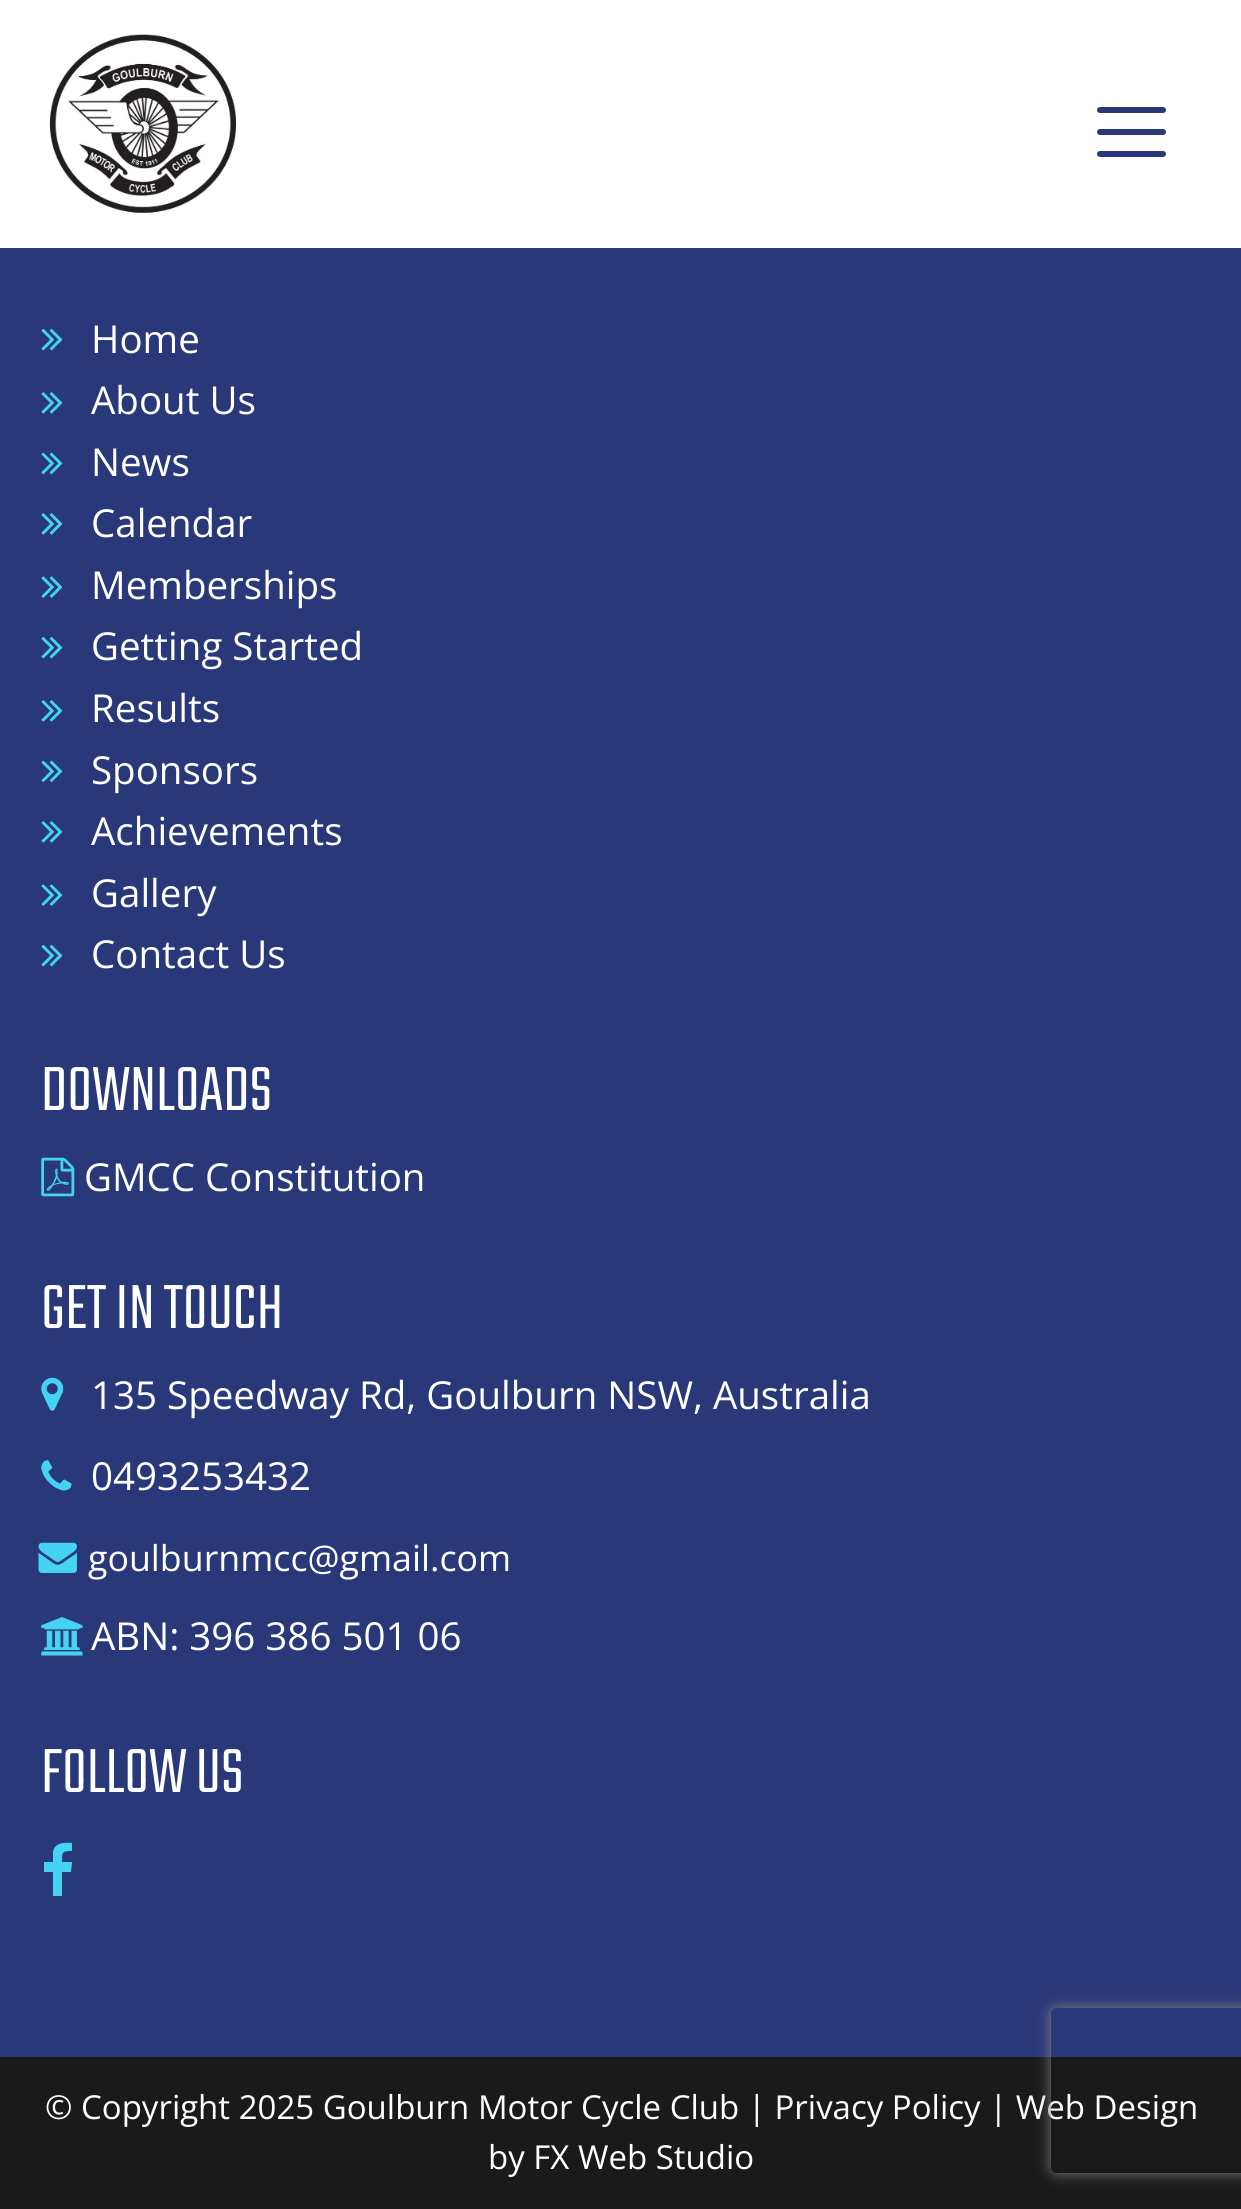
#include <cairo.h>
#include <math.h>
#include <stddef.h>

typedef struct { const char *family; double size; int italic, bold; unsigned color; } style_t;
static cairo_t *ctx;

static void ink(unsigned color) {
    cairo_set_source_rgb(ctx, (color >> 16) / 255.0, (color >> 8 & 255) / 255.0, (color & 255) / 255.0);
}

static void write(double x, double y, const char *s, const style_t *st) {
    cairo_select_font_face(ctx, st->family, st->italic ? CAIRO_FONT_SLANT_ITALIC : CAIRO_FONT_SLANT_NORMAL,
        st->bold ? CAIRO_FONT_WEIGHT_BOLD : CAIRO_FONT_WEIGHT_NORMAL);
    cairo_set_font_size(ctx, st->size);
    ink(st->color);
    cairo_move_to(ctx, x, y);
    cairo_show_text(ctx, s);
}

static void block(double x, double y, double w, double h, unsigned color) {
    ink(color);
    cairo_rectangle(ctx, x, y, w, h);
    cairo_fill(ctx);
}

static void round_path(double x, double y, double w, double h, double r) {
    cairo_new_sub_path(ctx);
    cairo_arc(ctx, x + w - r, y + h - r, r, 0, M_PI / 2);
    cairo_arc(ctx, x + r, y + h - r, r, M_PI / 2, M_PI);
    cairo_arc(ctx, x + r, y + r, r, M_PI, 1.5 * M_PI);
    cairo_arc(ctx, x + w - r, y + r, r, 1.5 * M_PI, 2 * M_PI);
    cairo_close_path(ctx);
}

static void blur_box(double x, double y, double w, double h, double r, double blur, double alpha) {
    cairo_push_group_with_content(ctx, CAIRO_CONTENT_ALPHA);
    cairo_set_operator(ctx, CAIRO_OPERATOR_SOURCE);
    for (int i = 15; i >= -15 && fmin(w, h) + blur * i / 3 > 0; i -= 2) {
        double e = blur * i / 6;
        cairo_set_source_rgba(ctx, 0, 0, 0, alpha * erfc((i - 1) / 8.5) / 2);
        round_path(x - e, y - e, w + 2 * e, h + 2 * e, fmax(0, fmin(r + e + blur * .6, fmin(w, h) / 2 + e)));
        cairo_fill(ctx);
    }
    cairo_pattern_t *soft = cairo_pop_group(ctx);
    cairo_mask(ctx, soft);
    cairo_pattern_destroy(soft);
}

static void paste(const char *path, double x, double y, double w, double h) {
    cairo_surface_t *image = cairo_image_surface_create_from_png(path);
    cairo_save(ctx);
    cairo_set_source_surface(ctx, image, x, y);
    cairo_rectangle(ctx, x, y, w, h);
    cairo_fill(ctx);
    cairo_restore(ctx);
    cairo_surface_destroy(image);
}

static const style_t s1 = {"Open Sans", 38.5, 0, 0, 0xffffff};
static const style_t s2 = {"Teko Light", 69, 0, 0, 0xffffff};
static const style_t s3 = {"Open Sans", 35.75, 0, 0, 0xffffff};
static const style_t s4 = {"Open Sans", 33, 0, 0, 0xffffff};

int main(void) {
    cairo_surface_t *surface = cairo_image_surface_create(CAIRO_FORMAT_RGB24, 1241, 2209);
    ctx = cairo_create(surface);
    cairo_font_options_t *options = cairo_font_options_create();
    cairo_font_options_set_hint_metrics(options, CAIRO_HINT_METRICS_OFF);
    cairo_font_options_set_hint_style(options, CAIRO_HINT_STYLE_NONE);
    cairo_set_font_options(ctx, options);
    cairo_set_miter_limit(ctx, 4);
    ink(0x283878);
    cairo_paint(ctx);
    block(0, 0, 1241, 248, 0xffffff);
    paste("pic1.png", 49, 34, 188, 179);
    ink(0x283878);
    round_path(1097, 107, 69, 6, 3);
    cairo_fill(ctx);
    round_path(1097, 129, 69, 6, 3);
    cairo_fill(ctx);
    round_path(1097, 151, 69, 6, 3);
    cairo_fill(ctx);
    paste("pic2.png", 41, 329, 22, 22);
    write(91, 353, "Home", &s1);
    paste("pic3.png", 41, 392, 22, 22);
    write(91, 414, "About Us", &s1);
    paste("pic4.png", 41, 452, 22, 22);
    write(91, 476, "News", &s1);
    paste("pic3.png", 41, 513, 22, 22);
    write(91, 537, "Calendar", &s1);
    paste("pic5.png", 41, 576, 22, 22);
    write(91, 599, "Memberships", &s1);
    paste("pic2.png", 41, 637, 22, 22);
    write(91, 660, "Getting Started", &s1);
    paste("pic3.png", 41, 700, 22, 22);
    write(91, 722, "Results", &s1);
    paste("pic4.png", 41, 760, 22, 22);
    write(91, 784, "Sponsors", &s1);
    paste("pic3.png", 41, 821, 22, 22);
    write(91, 845, "Achievements", &s1);
    paste("pic5.png", 41, 884, 22, 22);
    write(91, 907, "Gallery", &s1);
    paste("pic2.png", 41, 945, 22, 22);
    write(91, 968, "Contact Us", &s1);
    write(41, 1110, "DOWNLOADS", &s2);
    paste("pic6.png", 41, 1157, 34, 40);
    write(84, 1191, "GMCC Constitution", &s1);
    write(41, 1328, "GET IN TOUCH", &s2);
    paste("pic7.png", 41, 1377, 23, 34);
    write(91, 1409, "135 Speedway Rd, Goulburn NSW, Australia", &s1);
    paste("pic8.png", 41, 1460, 31, 31);
    write(91, 1490, "0493253432", &s1);
    paste("pic9.png", 38, 1542, 39, 31);
    write(88, 1571, "goulburnmcc@gmail.com", &s3);
    paste("pic10.png", 41, 1617, 42, 39);
    write(91, 1650, "ABN: 396 386 501 06", &s1);
    write(41, 1792, "FOLLOW US", &s2);
    ink(0x44d3f3);
    cairo_new_path(ctx);
    cairo_move_to(ctx, 72, 1843);
    cairo_line_to(ctx, 72, 1851);
    cairo_curve_to(ctx, 62, 1851, 62, 1852, 62, 1862);
    cairo_line_to(ctx, 72, 1862);
    cairo_line_to(ctx, 71, 1872);
    cairo_line_to(ctx, 62, 1872);
    cairo_line_to(ctx, 62, 1896);
    cairo_line_to(ctx, 53, 1896);
    cairo_line_to(ctx, 53, 1872);
    cairo_line_to(ctx, 44, 1872);
    cairo_line_to(ctx, 44, 1862);
    cairo_line_to(ctx, 53, 1862);
    cairo_line_to(ctx, 53, 1852);
    cairo_curve_to(ctx, 54, 1843, 64, 1842, 72, 1843);
    cairo_close_path(ctx);
    cairo_fill(ctx);
    block(0, 2057, 1241, 152, 0x1a1a1a);
    write(45, 2119, "© Copyright 2025 Goulburn Motor Cycle Club | Privacy Policy | Web Design", &s4);
    write(488, 2169, "by FX Web Studio", &s4);
    cairo_save(ctx);
    cairo_set_fill_rule(ctx, CAIRO_FILL_RULE_EVEN_ODD);
    cairo_new_path(ctx);
    cairo_move_to(ctx, 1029, 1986);
    cairo_line_to(ctx, 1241, 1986);
    cairo_line_to(ctx, 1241, 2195);
    cairo_line_to(ctx, 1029, 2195);
    cairo_close_path(ctx);
    cairo_move_to(ctx, 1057, 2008);
    cairo_line_to(ctx, 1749, 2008);
    cairo_curve_to(ctx, 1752.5, 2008, 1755, 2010.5, 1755, 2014);
    cairo_line_to(ctx, 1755, 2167);
    cairo_curve_to(ctx, 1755, 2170.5, 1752.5, 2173, 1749, 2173);
    cairo_line_to(ctx, 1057, 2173);
    cairo_curve_to(ctx, 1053.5, 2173, 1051, 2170.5, 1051, 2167);
    cairo_line_to(ctx, 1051, 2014);
    cairo_curve_to(ctx, 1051, 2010.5, 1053.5, 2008, 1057, 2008);
    cairo_close_path(ctx);
    cairo_clip(ctx);
    ink(0x808080);
    blur_box(1051, 2008, 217, 165, 6, 7, 1);
    cairo_restore(ctx);
    cairo_surface_write_to_png(surface, "screenshot.png");
    cairo_font_options_destroy(options);
    cairo_destroy(ctx);
    cairo_surface_destroy(surface);
    return 0;
}
